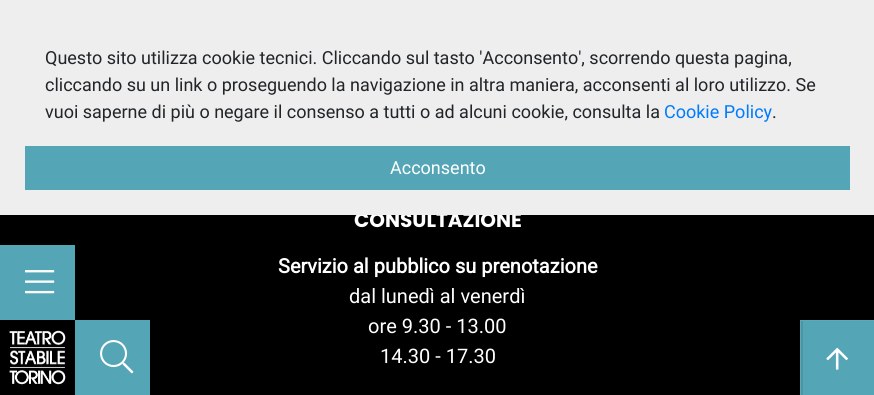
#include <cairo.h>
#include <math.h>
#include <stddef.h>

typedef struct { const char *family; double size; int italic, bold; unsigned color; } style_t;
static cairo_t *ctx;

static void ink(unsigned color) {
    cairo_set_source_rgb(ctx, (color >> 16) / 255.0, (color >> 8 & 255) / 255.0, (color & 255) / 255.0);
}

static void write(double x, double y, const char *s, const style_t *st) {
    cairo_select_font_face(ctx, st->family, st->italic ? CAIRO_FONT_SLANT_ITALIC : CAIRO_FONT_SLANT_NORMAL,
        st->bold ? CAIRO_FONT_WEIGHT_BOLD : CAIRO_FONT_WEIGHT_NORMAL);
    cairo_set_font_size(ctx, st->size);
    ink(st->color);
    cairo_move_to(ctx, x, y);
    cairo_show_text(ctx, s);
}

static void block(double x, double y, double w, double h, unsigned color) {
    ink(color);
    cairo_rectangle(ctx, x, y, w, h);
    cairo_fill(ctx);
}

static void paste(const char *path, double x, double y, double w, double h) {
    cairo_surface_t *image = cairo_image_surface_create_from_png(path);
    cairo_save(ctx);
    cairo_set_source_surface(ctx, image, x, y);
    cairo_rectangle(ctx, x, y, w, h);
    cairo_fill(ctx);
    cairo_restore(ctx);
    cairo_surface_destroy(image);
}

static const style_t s1 = {"Poppins", 20, 0, 1, 0xffffff};
static const style_t s2 = {"Roboto", 18, 0, 0, 0x212529};
static const style_t s3 = {"Roboto", 18, 0, 0, 0x007bff};
static const style_t s4 = {"Roboto", 18, 0, 0, 0xffffff};
static const style_t s5 = {"Roboto", 20, 0, 1, 0xffffff};
static const style_t s6 = {"Roboto", 20, 0, 0, 0xffffff};

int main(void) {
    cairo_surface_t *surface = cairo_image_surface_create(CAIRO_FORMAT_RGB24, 874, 395);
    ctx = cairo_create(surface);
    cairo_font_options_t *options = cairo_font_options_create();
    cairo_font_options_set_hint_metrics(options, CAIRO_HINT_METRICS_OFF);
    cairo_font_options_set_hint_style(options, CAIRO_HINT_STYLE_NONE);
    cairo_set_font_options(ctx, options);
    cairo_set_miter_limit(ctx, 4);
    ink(0x000000);
    cairo_paint(ctx);
    write(354, 227, "CONSULTAZIONE", &s1);
    block(0, 0, 874, 215, 0xeeeeee);
    write(45, 64, "Questo sito utilizza cookie tecnici. Cliccando sul tasto 'Acconsento', scorrendo questa pagina,", &s2);
    write(45, 91, "cliccando su un link o proseguendo la navigazione in altra maniera, acconsenti al loro utilizzo. Se", &s2);
    write(45, 118, "vuoi saperne di più o negare il consenso a tutti o ad alcuni cookie, consulta la", &s2);
    write(664, 118, "Cookie Policy", &s3);
    write(772, 118, ".", &s2);
    block(25, 146, 825, 44, 0x54a5b6);
    write(390, 174, "Acconsento", &s4);
    block(0, 245, 75, 75, 0x54a5b6);
    paste("pic1.png", 25, 270, 30, 24);
    paste("pic2.png", 9, 330, 57, 55);
    block(75, 320, 75, 75, 0x54a5b6);
    paste("pic3.png", 100, 340, 34, 34);
    write(278, 273, "Servizio al pubblico su prenotazione", &s5);
    write(349, 303, "dal lunedì al venerdì", &s6);
    write(368, 333, "ore 9.30 - 13.00", &s6);
    write(380, 363, "14.30 - 17.30", &s6);
    block(803, 321, 71, 74, 0x54a5b6);
    cairo_rectangle(ctx, 800.5, 320.5, 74, 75);
    ink(0x5ca9b9);
    cairo_set_line_width(ctx, 1);
    cairo_stroke(ctx);
    block(801, 321, 2, 74, 0x4c95a4);
    paste("pic4.png", 826, 347, 22, 23);
    cairo_surface_write_to_png(surface, "screenshot.png");
    cairo_font_options_destroy(options);
    cairo_destroy(ctx);
    cairo_surface_destroy(surface);
    return 0;
}
